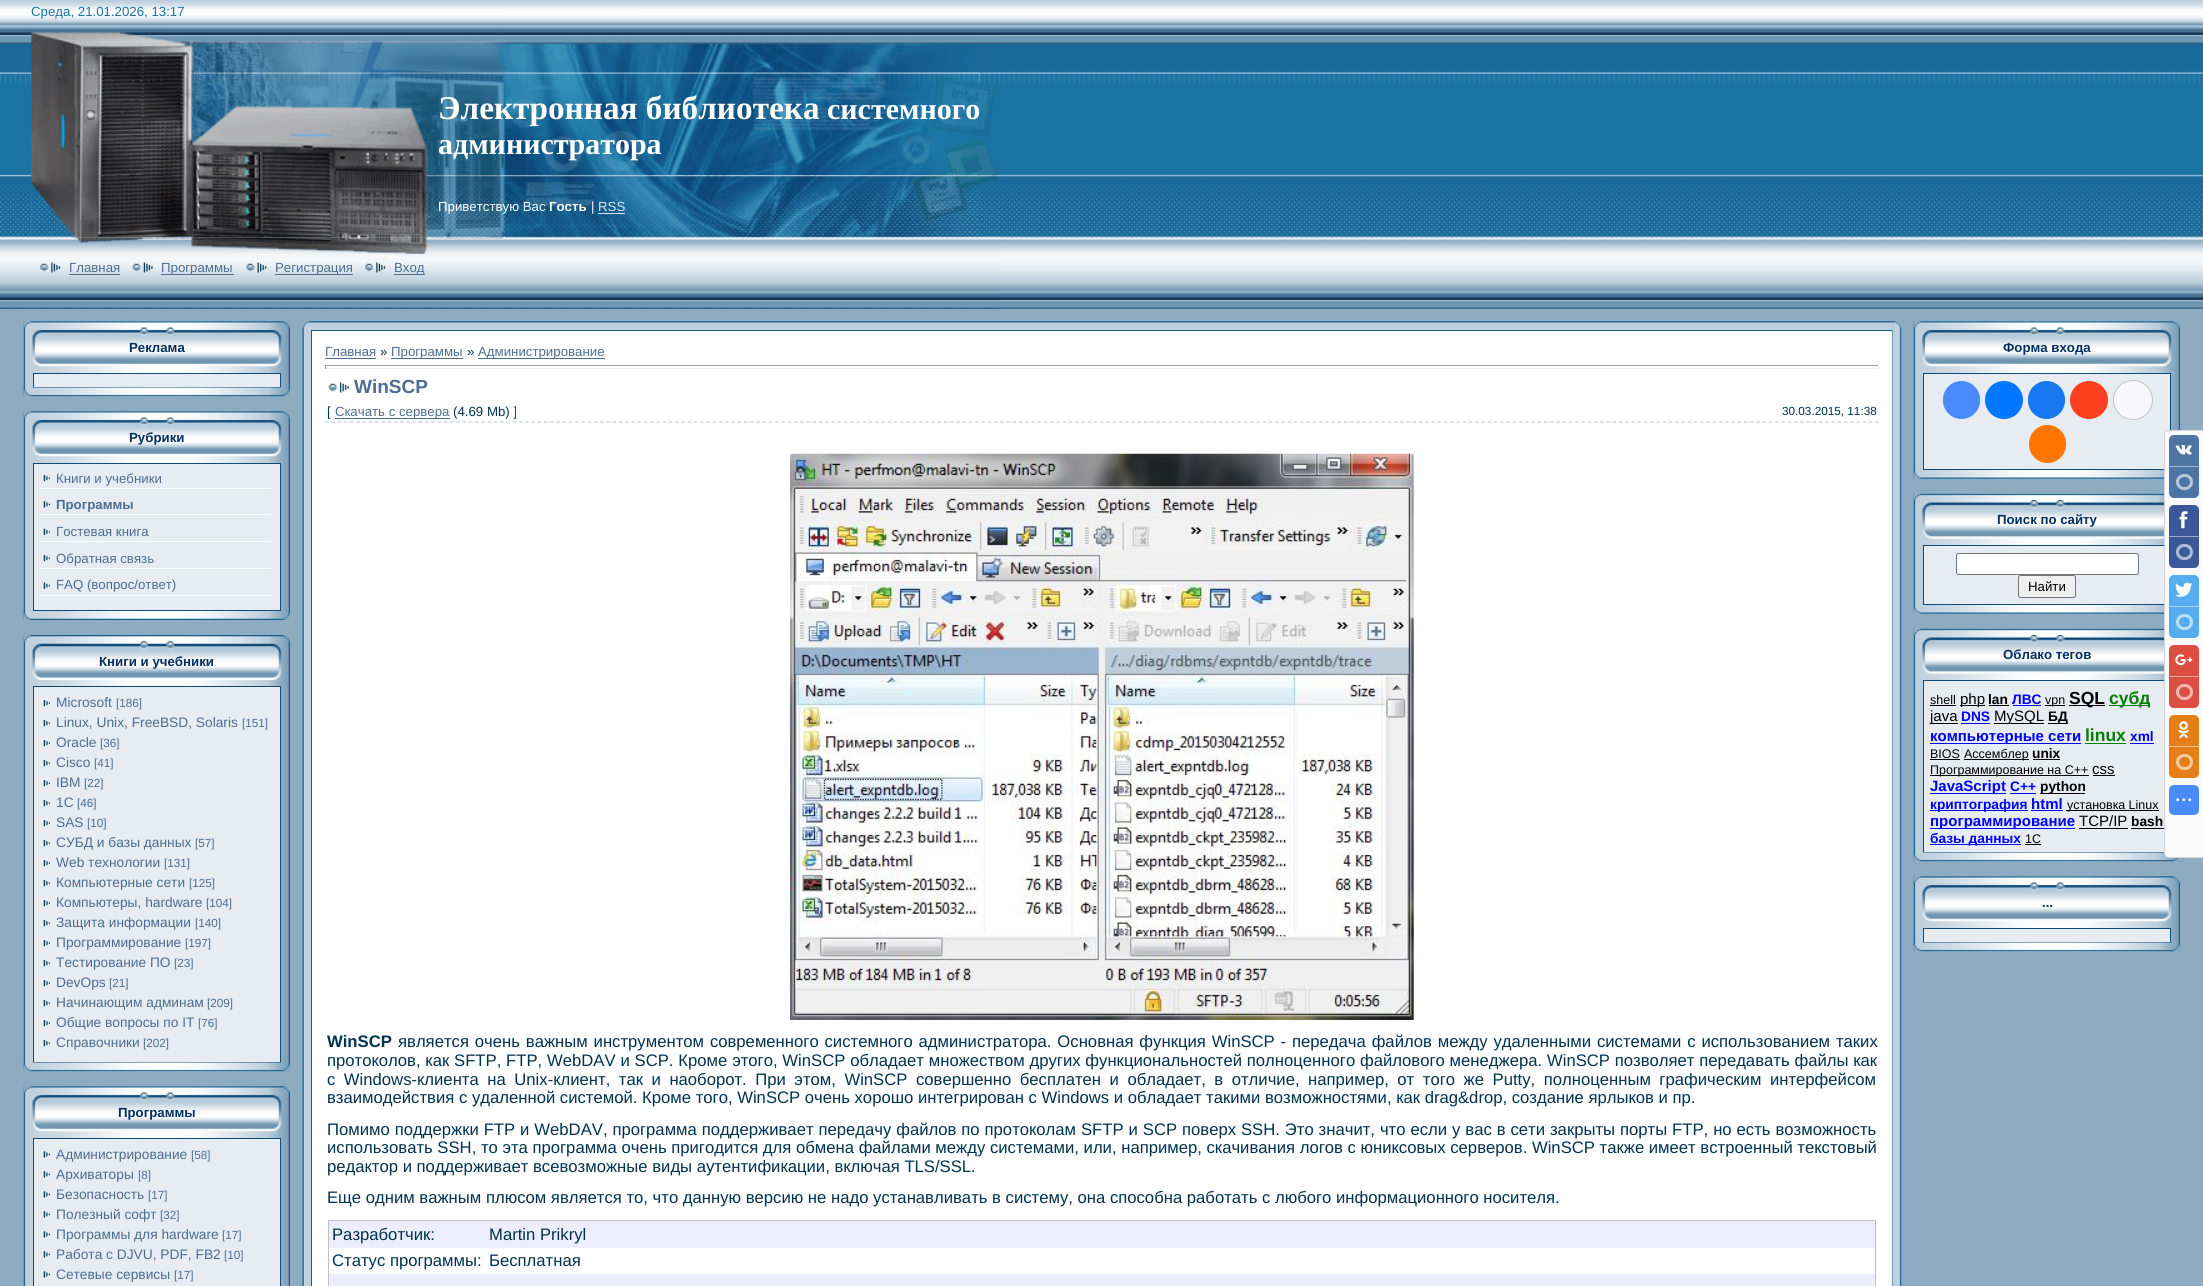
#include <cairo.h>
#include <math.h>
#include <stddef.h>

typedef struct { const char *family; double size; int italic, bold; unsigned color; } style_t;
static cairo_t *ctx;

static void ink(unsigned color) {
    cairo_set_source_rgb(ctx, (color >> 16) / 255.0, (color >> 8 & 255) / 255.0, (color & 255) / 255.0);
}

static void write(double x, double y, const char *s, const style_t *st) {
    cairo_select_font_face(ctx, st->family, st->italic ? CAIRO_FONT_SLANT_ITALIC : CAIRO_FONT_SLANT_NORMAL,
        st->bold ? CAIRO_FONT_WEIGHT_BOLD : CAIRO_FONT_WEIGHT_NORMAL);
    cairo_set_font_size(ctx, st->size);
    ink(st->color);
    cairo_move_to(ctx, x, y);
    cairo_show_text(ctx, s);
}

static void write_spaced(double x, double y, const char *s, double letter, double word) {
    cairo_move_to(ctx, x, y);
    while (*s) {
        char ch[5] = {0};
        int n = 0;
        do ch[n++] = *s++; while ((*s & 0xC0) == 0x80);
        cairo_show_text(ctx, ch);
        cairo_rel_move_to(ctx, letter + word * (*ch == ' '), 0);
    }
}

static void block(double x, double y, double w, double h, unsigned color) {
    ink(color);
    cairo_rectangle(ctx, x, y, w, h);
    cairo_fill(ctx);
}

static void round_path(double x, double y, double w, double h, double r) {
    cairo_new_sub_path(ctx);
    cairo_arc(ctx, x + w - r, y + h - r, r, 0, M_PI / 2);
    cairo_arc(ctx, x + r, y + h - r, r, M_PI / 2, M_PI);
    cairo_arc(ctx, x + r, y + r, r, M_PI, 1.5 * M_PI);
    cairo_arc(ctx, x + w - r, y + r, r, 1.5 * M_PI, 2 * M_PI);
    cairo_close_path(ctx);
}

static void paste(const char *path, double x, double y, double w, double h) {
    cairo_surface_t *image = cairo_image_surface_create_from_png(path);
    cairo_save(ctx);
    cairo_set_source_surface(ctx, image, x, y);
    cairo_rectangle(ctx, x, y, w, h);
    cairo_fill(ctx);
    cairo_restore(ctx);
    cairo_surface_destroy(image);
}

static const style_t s1 = {"Liberation Sans", 13.25, 0, 0, 0x1a73a3};
static const style_t s2 = {"Liberation Serif", 33.25, 0, 1, 0xffffff};
static const style_t s3 = {"Liberation Serif", 30, 0, 1, 0xffffff};
static const style_t s4 = {"Liberation Sans", 13.25, 0, 0, 0xffffff};
static const style_t s5 = {"Liberation Sans", 13.25, 0, 1, 0xffffff};
static const style_t s6 = {"Liberation Sans", 13.25, 0, 0, 0xd8e2eb};
static const style_t s7 = {"Liberation Sans", 13.25, 0, 0, 0x4d6d91};
static const style_t s8 = {"Liberation Sans", 13.25, 0, 1, 0x032f60};
static const style_t s9 = {"Liberation Sans", 13.25, 0, 1, 0x4d6d91};
static const style_t s10 = {"Liberation Sans", 13.75, 0, 0, 0x4d6d91};
static const style_t s11 = {"Liberation Sans", 11.75, 0, 0, 0x4d6d91};
static const style_t s12 = {"Liberation Sans", 13.25, 0, 0, 0x01324e};
static const style_t s13 = {"Liberation Sans", 19, 0, 1, 0x4d6d91};
static const style_t s14 = {"Liberation Sans", 11.75, 0, 0, 0x01324e};
static const style_t s15 = {"Liberation Sans", 16.67, 0, 1, 0x01324e};
static const style_t s16 = {"Liberation Sans", 16.67, 0, 0, 0x01324e};
static const style_t s17 = {"Liberation Sans", 13.25, 0, 0, 0x000000};
static const style_t s18 = {"Liberation Sans", 12.5, 0, 0, 0x000000};
static const style_t s19 = {"Liberation Sans", 15, 0, 0, 0x000000};
static const style_t s20 = {"Liberation Sans", 13.75, 0, 1, 0x000000};
static const style_t s21 = {"Liberation Sans", 13.75, 0, 1, 0x0000ff};
static const style_t s22 = {"Liberation Sans", 17.5, 0, 1, 0x000000};
static const style_t s23 = {"Liberation Sans", 17.5, 0, 1, 0x008000};
static const style_t s24 = {"Liberation Sans", 15, 0, 1, 0x0000ff};

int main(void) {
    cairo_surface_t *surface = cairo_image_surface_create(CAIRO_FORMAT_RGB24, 2203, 1286);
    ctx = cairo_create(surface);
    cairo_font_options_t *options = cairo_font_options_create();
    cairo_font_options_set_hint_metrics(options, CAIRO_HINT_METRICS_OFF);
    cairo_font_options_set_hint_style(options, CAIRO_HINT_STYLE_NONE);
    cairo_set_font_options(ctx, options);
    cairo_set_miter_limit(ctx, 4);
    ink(0x8dacc2);
    cairo_paint(ctx);
    paste("pic1.png", 0, 0, 2203, 309);
    paste("pic2.png", 0, 20, 1000, 55);
    write(31, 16, "Среда, 21.01.2026, 13:17", &s1);
    paste("pic3.png", 0, 75, 1000, 100);
    write(438, 119, "Электронная библиотека", &s2);
    write(827, 119, "системного", &s3);
    write(438, 154, "администратора", &s3);
    paste("pic4.png", 0, 175, 1000, 63);
    write(438, 211, "Приветствую Вас", &s4);
    write(549, 211, "Гость", &s5);
    write(591, 211, "|", &s4);
    write(598, 211, "RSS", &s6);
    block(598, 213, 27, 1, 0xd8e2eb);
    paste("pic5.png", 0, 237, 1000, 72);
    paste("pic6.png", 39, 262, 22, 11);
    write(69, 272, "Главная", &s7);
    block(69, 274, 51, 1, 0x4d6d91);
    paste("pic7.png", 132, 262, 21, 11);
    block(161, 274, 73, 1, 0x4d6d91);
    write(161, 272, "Программы", &s7);
    paste("pic8.png", 246, 262, 21, 11);
    block(275, 274, 78, 1, 0x4d6d91);
    write(275, 272, "Регистрация", &s7);
    paste("pic6.png", 364, 262, 22, 11);
    block(394, 274, 31, 1, 0x4d6d91);
    write(394, 272, "Вход", &s7);
    paste("pic9.png", 23, 321, 267, 76);
    paste("pic10.png", 23, 321, 267, 7);
    paste("pic11.png", 32, 327, 250, 40);
    write(129, 352, "Реклама", &s8);
    ink(0xe6ecf1);
    cairo_rectangle(ctx, 33.5, 373.5, 247, 14);
    cairo_fill_preserve(ctx);
    ink(0x0e4c7c);
    cairo_set_line_width(ctx, 1);
    cairo_stroke(ctx);
    paste("pic12.png", 23, 387, 267, 10);
    paste("pic13.png", 23, 411, 267, 209);
    paste("pic10.png", 23, 411, 267, 7);
    paste("pic11.png", 32, 417, 250, 40);
    write(129, 442, "Рубрики", &s8);
    ink(0xe6ecf1);
    cairo_rectangle(ctx, 33.5, 463.5, 247, 147);
    cairo_fill_preserve(ctx);
    ink(0x0e4c7c);
    cairo_stroke(ctx);
    paste("pic14.png", 43, 475, 7, 7);
    block(40, 488, 231, 1, 0xffffff);
    write(56, 483, "Книги и учебники", &s7);
    paste("pic15.png", 43, 501, 7, 7);
    block(40, 514, 231, 1, 0xffffff);
    write(56, 509, "Программы", &s9);
    paste("pic16.png", 43, 528, 7, 7);
    block(40, 541, 231, 1, 0xffffff);
    write(56, 536, "Гостевая книга", &s7);
    paste("pic14.png", 43, 555, 7, 7);
    block(40, 568, 231, 1, 0xffffff);
    write(56, 563, "Обратная связь", &s7);
    paste("pic17.png", 43, 582, 7, 7);
    block(40, 595, 231, 1, 0xffffff);
    write(56, 589, "FAQ (вопрос/ответ)", &s7);
    paste("pic18.png", 23, 611, 267, 9);
    paste("pic19.png", 23, 635, 267, 437);
    paste("pic20.png", 23, 635, 267, 7);
    paste("pic21.png", 32, 641, 250, 39);
    write(99, 666, "Книги и учебники", &s8);
    ink(0xe6ecf1);
    cairo_rectangle(ctx, 33.5, 686.5, 247, 376);
    cairo_fill_preserve(ctx);
    ink(0x0e4c7c);
    cairo_stroke(ctx);
    paste("pic14.png", 43, 700, 7, 7);
    write(56, 707, "Microsoft", &s10);
    write(116, 707, "[186]", &s11);
    paste("pic14.png", 43, 720, 7, 7);
    write(56, 727, "Linux, Unix, FreeBSD, Solaris", &s10);
    write(242, 727, "[151]", &s11);
    paste("pic14.png", 43, 740, 7, 7);
    write(56, 747, "Oracle", &s10);
    write(100, 747, "[36]", &s11);
    paste("pic14.png", 43, 760, 7, 7);
    write(56, 767, "Cisco", &s10);
    write(94, 767, "[41]", &s11);
    paste("pic22.png", 43, 780, 7, 7);
    write(56, 787, "IBM", &s10);
    write(84, 787, "[22]", &s11);
    paste("pic14.png", 43, 800, 7, 7);
    write(56, 807, "1C", &s10);
    write(77, 807, "[46]", &s11);
    paste("pic14.png", 43, 820, 7, 7);
    write(56, 827, "SAS", &s10);
    write(87, 827, "[10]", &s11);
    paste("pic14.png", 43, 840, 7, 7);
    write(56, 847, "СУБД и базы данных", &s10);
    write(195, 847, "[57]", &s11);
    paste("pic14.png", 43, 860, 7, 7);
    write(56, 867, "Web технологии", &s10);
    write(164, 867, "[131]", &s11);
    paste("pic14.png", 43, 880, 7, 7);
    write(56, 887, "Компьютерные сети", &s10);
    write(189, 887, "[125]", &s11);
    paste("pic14.png", 43, 900, 7, 7);
    write(56, 907, "Компьютеры, hardware", &s10);
    write(206, 907, "[104]", &s11);
    paste("pic14.png", 43, 920, 7, 7);
    write(56, 927, "Защита информации", &s10);
    write(195, 927, "[140]", &s11);
    paste("pic14.png", 43, 940, 7, 7);
    write(56, 947, "Программирование", &s10);
    write(185, 947, "[197]", &s11);
    paste("pic14.png", 43, 960, 7, 7);
    write(56, 967, "Тестирование ПО", &s10);
    write(174, 967, "[23]", &s11);
    paste("pic14.png", 43, 980, 7, 7);
    write(56, 987, "DevOps", &s10);
    write(109, 987, "[21]", &s11);
    paste("pic14.png", 43, 1000, 7, 7);
    write(56, 1007, "Начинающим админам", &s10);
    write(207, 1007, "[209]", &s11);
    paste("pic14.png", 43, 1020, 7, 7);
    write(56, 1027, "Общие вопросы по IT", &s10);
    write(198, 1027, "[76]", &s11);
    paste("pic14.png", 43, 1040, 7, 7);
    write(56, 1047, "Справочники", &s10);
    write(143, 1047, "[202]", &s11);
    paste("pic12.png", 23, 1062, 267, 10);
    paste("pic23.png", 23, 1086, 267, 200);
    paste("pic10.png", 23, 1086, 267, 7);
    paste("pic11.png", 32, 1092, 250, 40);
    write(118, 1117, "Программы", &s8);
    ink(0xe6ecf1);
    cairo_rectangle(ctx, 33.5, 1138.5, 247, 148);
    cairo_fill_preserve(ctx);
    ink(0x0e4c7c);
    cairo_stroke(ctx);
    paste("pic15.png", 43, 1151, 7, 7);
    write(56, 1159, "Администрирование", &s10);
    write(191, 1159, "[58]", &s11);
    paste("pic15.png", 43, 1171, 7, 7);
    write(56, 1179, "Архиваторы", &s10);
    write(138, 1179, "[8]", &s11);
    paste("pic15.png", 43, 1191, 7, 7);
    write(56, 1199, "Безопасность", &s10);
    write(148, 1199, "[17]", &s11);
    paste("pic15.png", 43, 1211, 7, 7);
    write(56, 1219, "Полезный софт", &s10);
    write(160, 1219, "[32]", &s11);
    paste("pic15.png", 43, 1231, 7, 7);
    write(56, 1239, "Программы для hardware", &s10);
    write(222, 1239, "[17]", &s11);
    paste("pic15.png", 43, 1251, 7, 7);
    write(56, 1259, "Работа с DJVU, PDF, FB2", &s10);
    write(224, 1259, "[10]", &s11);
    paste("pic15.png", 43, 1271, 7, 7);
    write(56, 1279, "Сетевые сервисы", &s10);
    write(174, 1279, "[17]", &s11);
    paste("pic25.png", 311, 321, 1582, 9);
    paste("pic24.png", 302, 321, 10, 9);
    paste("pic26.png", 1892, 321, 10, 9);
    paste("pic27.png", 302, 330, 9, 956);
    ink(0xffffff);
    cairo_rectangle(ctx, 311.5, 330.5, 1581, 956);
    cairo_fill_preserve(ctx);
    ink(0x146090);
    cairo_stroke(ctx);
    write(325, 356, "Главная", &s7);
    block(325, 358, 51, 1, 0x4d6d91);
    write(380, 356, "»", &s12);
    block(391, 358, 72, 1, 0x4d6d91);
    write(391, 356, "Программы", &s7);
    write(467, 356, "»", &s12);
    block(478, 358, 127, 1, 0x4d6d91);
    write(478, 356, "Администрирование", &s7);
    block(325, 365, 1554, 1, 0x9f9f9f);
    block(1878, 365, 1, 4, 0xeeeeee);
    block(325, 368, 1554, 1, 0xeeeeee);
    block(325, 365, 1, 4, 0x9f9f9f);
    paste("pic28.png", 328, 382, 21, 11);
    write(354, 393, "WinSCP", &s13);
    write(327, 416, "[", &s12);
    block(335, 418, 115, 1, 0x4d6d91);
    write(335, 416, "Скачать с сервера", &s7);
    write(453, 416, "(4.69 Mb) ]", &s12);
    write(1782, 415, "30.03.2015, 11:38", &s14);
    cairo_new_path(ctx);
    cairo_move_to(ctx, 325, 422);
    cairo_line_to(ctx, 1879, 422);
    ink(0xc1d2de);
    cairo_set_line_width(ctx, 1.2);
    cairo_set_dash(ctx, (double[]){3.75, 2.5}, 2, 0);
    cairo_stroke(ctx);
    paste("pic29.png", 790, 453, 624, 567);
    write(327, 1047, "WinSCP", &s15);
    cairo_select_font_face(ctx, "Liberation Sans", CAIRO_FONT_SLANT_NORMAL, CAIRO_FONT_WEIGHT_NORMAL);
    write_spaced(398, 1047, "является очень важным инструментом современного системного администратора. Основная функция WinSCP - передача файлов между удаленными системами с использованием таких", 0, 1.25);
    write_spaced(327, 1066, "протоколов, как SFTP, FTP, WebDAV и SCP. Кроме этого, WinSCP обладает множеством других функциональностей полноценного файлового менеджера. WinSCP позволяет передавать файлы как", 0, 0.2);
    write_spaced(327, 1085, "с Windows-клиента на Unix-клиент, так и наоборот. При этом, WinSCP совершенно бесплатен и обладает, в отличие, например, от того же Putty, полноценным графическим интерфейсом", 0, 3.9);
    write(327, 1103, "взаимодействия с удаленной системой. Кроме того, WinSCP очень хорошо интегрирован с Windows и обладает такими возможностями, как drag&drop, создание ярлыков и пр.", &s16);
    write_spaced(327, 1135, "Помимо поддержки FTP и WebDAV, программа поддерживает передачу файлов по протоколам SFTP и SCP поверх SSH. Это значит, что если у вас в сети закрыты порты FTP, но есть возможность", 0, 0.3);
    write(327, 1153, "использовать SSH, то эта программа очень пригодится для обмена файлами между системами, или, например, скачивания логов с юниксовых серверов. WinSCP также имеет встроенный текстовый", &s16);
    write(327, 1172, "редактор и поддерживает всевозможные виды аутентификации, включая TLS/SSL.", &s16);
    write(327, 1203, "Еще одним важным плюсом является то, что данную версию не надо устанавливать в систему, она способна работать с любого информационного носителя.", &s16);
    cairo_rectangle(ctx, 328.5, 1220.5, 1547, 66);
    ink(0xc0c0c0);
    cairo_set_line_width(ctx, 1);
    cairo_set_dash(ctx, NULL, 0, 0);
    cairo_stroke(ctx);
    block(329, 1221, 1546, 27, 0xeceefd);
    write(332, 1240, "Разработчик:", &s16);
    write(489, 1240, "Martin Prikryl", &s16);
    write(332, 1266, "Статус программы:", &s16);
    write(489, 1266, "Бесплатная", &s16);
    block(329, 1274, 1546, 12, 0xeceefd);
    paste("pic30.png", 1892, 330, 10, 956);
    paste("pic31.png", 1913, 321, 267, 158);
    paste("pic32.png", 1913, 321, 267, 7);
    paste("pic33.png", 1922, 327, 250, 40);
    write(2003, 352, "Форма входа", &s8);
    ink(0xe6ecf1);
    cairo_rectangle(ctx, 1923.5, 373.5, 247, 96);
    cairo_fill_preserve(ctx);
    ink(0x0e4c7c);
    cairo_stroke(ctx);
    ink(0x498bfa);
    round_path(1943, 381, 37, 38, 18.5);
    cairo_fill(ctx);
    ink(0x0077ff);
    cairo_arc(ctx, 2004, 400, 19, 0, 2 * M_PI);
    cairo_fill(ctx);
    ink(0x1877f2);
    round_path(2028, 381, 37, 38, 18.5);
    cairo_fill(ctx);
    ink(0xfc3f1d);
    cairo_arc(ctx, 2089, 400, 19, 0, 2 * M_PI);
    cairo_fill(ctx);
    ink(0xf8f8fc);
    cairo_arc(ctx, 2133, 400, 19.5, 0, 2 * M_PI);
    cairo_fill_preserve(ctx);
    ink(0xc4c4c4);
    cairo_stroke(ctx);
    ink(0xff7700);
    round_path(2029, 425, 37, 38, 18.5);
    cairo_fill(ctx);
    paste("pic34.png", 1913, 470, 251, 9);
    paste("pic35.png", 1913, 493, 251, 121);
    paste("pic36.png", 1913, 493, 251, 7);
    paste("pic37.png", 1922, 500, 242, 39);
    write(1997, 524, "Поиск по сайту", &s8);
    block(1924, 546, 240, 58, 0xe6ecf1);
    cairo_rectangle(ctx, 1923.5, 545.5, 247, 59);
    ink(0x0e4c7c);
    cairo_stroke(ctx);
    ink(0xffffff);
    round_path(1956.5, 553.5, 182, 21, 2);
    cairo_fill_preserve(ctx);
    ink(0x767676);
    cairo_stroke(ctx);
    ink(0xefefef);
    round_path(2018.5, 575.5, 57, 22, 2);
    cairo_fill_preserve(ctx);
    ink(0x767676);
    cairo_stroke(ctx);
    write(2028, 591, "Найти", &s17);
    paste("pic34.png", 1913, 605, 251, 9);
    paste("pic38.png", 1913, 628, 267, 234);
    paste("pic36.png", 1913, 628, 251, 7);
    paste("pic37.png", 1922, 635, 242, 39);
    write(2003, 659, "Облако тегов", &s8);
    block(1924, 681, 240, 171, 0xe6ecf1);
    cairo_rectangle(ctx, 1923.5, 680.5, 247, 172);
    ink(0x0e4c7c);
    cairo_stroke(ctx);
    write(1930, 704, "shell", &s18);
    block(1930, 705, 26, 1, 0x000000);
    block(1960, 705, 25, 1, 0x000000);
    write(1960, 704, "php", &s19);
    write(1988, 704, "lan", &s20);
    block(1989, 705, 20, 1, 0x000000);
    write(2012, 704, "ЛВС", &s21);
    block(2045, 705, 20, 1, 0x000000);
    write(2045, 704, "vpn", &s18);
    block(2013, 705, 28, 1, 0x0000ff);
    block(2069, 705, 36, 1, 0x000000);
    write(2069, 704, "SQL", &s22);
    block(2109, 705, 41, 1, 0x008000);
    write(2109, 704, "субд", &s23);
    block(1930, 723, 28, 1, 0x000000);
    write(1930, 721, "java", &s19);
    write(1961, 721, "DNS", &s21);
    block(1961, 723, 29, 1, 0x0000ff);
    block(1994, 723, 50, 1, 0x000000);
    write(1994, 721, "MySQL", &s19);
    block(2048, 723, 20, 1, 0x000000);
    write(2048, 721, "БД", &s20);
    block(1930, 743, 151, 1, 0x0000ff);
    write(1930, 741, "компьютерные сети", &s24);
    block(2085, 743, 41, 1, 0x008000);
    write(2085, 741, "linux", &s23);
    write(2130, 741, "xml", &s21);
    block(2130, 743, 24, 1, 0x0000ff);
    write(1930, 758, "BIOS", &s18);
    block(1930, 759, 30, 1, 0x000000);
    block(1964, 759, 65, 1, 0x000000);
    write(1964, 758, "Ассемблер", &s18);
    write(2032, 758, "unix", &s20);
    block(2033, 759, 27, 1, 0x000000);
    block(1930, 775, 159, 1, 0x000000);
    write(1930, 774, "Программирование на C++", &s18);
    write(2092, 774, "css", &s19);
    block(2093, 775, 22, 1, 0x000000);
    block(1930, 793, 76, 1, 0x0000ff);
    write(1930, 791, "JavaScript", &s24);
    write(2010, 791, "C++", &s21);
    block(2010, 793, 26, 1, 0x0000ff);
    block(2040, 793, 45, 1, 0x000000);
    write(2040, 791, "python", &s20);
    block(1930, 810, 98, 1, 0x0000ff);
    write(1930, 809, "криптография", &s21);
    write(2031, 809, "html", &s24);
    block(2031, 810, 32, 1, 0x0000ff);
    block(2066, 810, 93, 1, 0x000000);
    write(2067, 809, "установка Linux", &s18);
    block(1930, 828, 145, 1, 0x0000ff);
    write(1930, 826, "программирование", &s24);
    block(2079, 828, 49, 1, 0x000000);
    write(2079, 826, "TCP/IP", &s19);
    write(2131, 826, "bash", &s20);
    block(2131, 828, 33, 1, 0x000000);
    block(1930, 844, 91, 1, 0x0000ff);
    write(1930, 843, "базы данных", &s21);
    write(2025, 843, "1С", &s18);
    block(2025, 844, 16, 1, 0x000000);
    paste("pic39.png", 1913, 852, 267, 10);
    paste("pic9.png", 1913, 876, 267, 76);
    paste("pic32.png", 1913, 876, 267, 7);
    paste("pic33.png", 1922, 882, 250, 40);
    write(2042, 907, "...", &s8);
    ink(0xe6ecf1);
    cairo_rectangle(ctx, 1923.5, 928.5, 247, 14);
    cairo_fill_preserve(ctx);
    ink(0x0e4c7c);
    cairo_stroke(ctx);
    paste("pic39.png", 1913, 942, 267, 10);
    ink(0xfafafa);
    cairo_new_path(ctx);
    cairo_move_to(ctx, 2169, 430.5);
    cairo_line_to(ctx, 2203.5, 430.5);
    cairo_line_to(ctx, 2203.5, 857.5);
    cairo_line_to(ctx, 2169, 857.5);
    cairo_curve_to(ctx, 2166.5, 857.5, 2164.5, 855.5, 2164.5, 853);
    cairo_line_to(ctx, 2164.5, 435);
    cairo_curve_to(ctx, 2164.5, 432.5, 2166.5, 430.5, 2169, 430.5);
    cairo_close_path(ctx);
    cairo_fill_preserve(ctx);
    ink(0xd4d4d4);
    cairo_stroke(ctx);
    ink(0x4d75a3);
    round_path(2169, 435, 30, 63, 5);
    cairo_fill(ctx);
    paste("pic40.png", 2175, 445, 17, 10);
    block(2169, 466, 30, 1, 0xa6bad1);
    round_path(2177.5, 475.5, 14, 13, 6.5);
    ink(0xb8c8da);
    cairo_set_line_width(ctx, 3);
    cairo_stroke(ctx);
    ink(0x3b5998);
    round_path(2169, 505, 30, 63, 5);
    cairo_fill(ctx);
    paste("pic41.png", 2179, 511, 9, 18);
    block(2169, 536, 30, 1, 0x9daccc);
    round_path(2177.5, 545.5, 14, 13, 6.5);
    ink(0xb1bdd6);
    cairo_stroke(ctx);
    ink(0x55acee);
    round_path(2169, 575, 30, 63, 5);
    cairo_fill(ctx);
    paste("pic42.png", 2175, 582, 18, 15);
    block(2169, 606, 30, 1, 0xaad6f7);
    round_path(2177.5, 615.5, 14, 13, 6.5);
    ink(0xbbdef8);
    cairo_stroke(ctx);
    ink(0xdc4e41);
    round_path(2169, 645, 30, 63, 5);
    cairo_fill(ctx);
    paste("pic43.png", 2175, 654, 18, 12);
    block(2169, 676, 30, 1, 0xeea7a0);
    round_path(2177.5, 685.5, 14, 13, 6.5);
    ink(0xf1b8b3);
    cairo_stroke(ctx);
    ink(0xe67e17);
    round_path(2169, 715, 30, 63, 5);
    cairo_fill(ctx);
    paste("pic44.png", 2178, 721, 11, 18);
    block(2169, 746, 30, 1, 0xf3bf8b);
    round_path(2177.5, 755.5, 14, 13, 6.5);
    ink(0xf5cba2);
    cairo_stroke(ctx);
    ink(0x498bfa);
    round_path(2169, 785, 30, 30, 5);
    cairo_fill(ctx);
    paste("pic45.png", 2176, 798, 16, 4);
    cairo_surface_write_to_png(surface, "screenshot.png");
    cairo_font_options_destroy(options);
    cairo_destroy(ctx);
    cairo_surface_destroy(surface);
    return 0;
}
